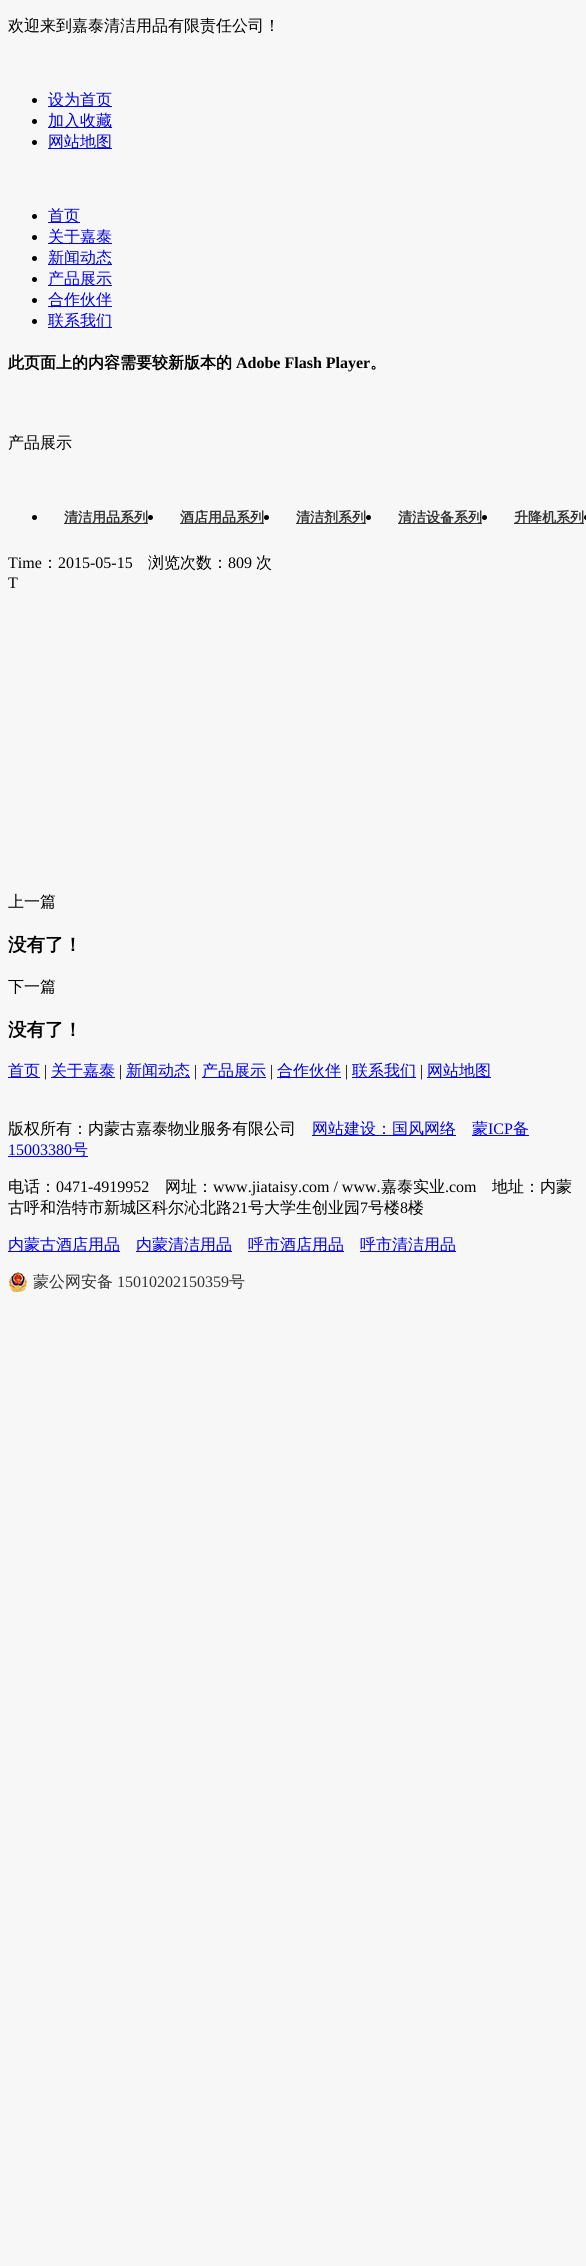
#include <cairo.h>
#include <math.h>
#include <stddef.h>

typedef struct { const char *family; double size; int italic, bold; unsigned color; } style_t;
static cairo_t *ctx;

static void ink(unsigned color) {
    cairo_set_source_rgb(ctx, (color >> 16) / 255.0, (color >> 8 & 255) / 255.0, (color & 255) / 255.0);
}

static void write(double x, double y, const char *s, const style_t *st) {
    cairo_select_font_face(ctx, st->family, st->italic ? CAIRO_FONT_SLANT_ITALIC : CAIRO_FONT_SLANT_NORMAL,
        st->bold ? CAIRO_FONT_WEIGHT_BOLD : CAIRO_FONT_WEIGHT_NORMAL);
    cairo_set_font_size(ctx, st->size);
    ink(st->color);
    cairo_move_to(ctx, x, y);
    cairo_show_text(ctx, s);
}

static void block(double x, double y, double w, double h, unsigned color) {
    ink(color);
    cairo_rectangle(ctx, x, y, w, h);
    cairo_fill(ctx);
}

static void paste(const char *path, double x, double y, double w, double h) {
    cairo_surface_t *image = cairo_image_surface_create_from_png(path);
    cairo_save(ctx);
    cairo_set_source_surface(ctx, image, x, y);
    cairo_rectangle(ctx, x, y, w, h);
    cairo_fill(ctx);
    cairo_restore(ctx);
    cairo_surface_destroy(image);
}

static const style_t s1 = {"WenQuanYi Zen Hei Medium", 16, 0, 0, 0x000000};
static const style_t s2 = {"WenQuanYi Zen Hei Medium", 16, 0, 0, 0x0000ee};
static const style_t s3 = {"WenQuanYi Zen Hei", 16, 0, 1, 0x000000};
static const style_t s4 = {"Liberation Serif", 16, 0, 1, 0x000000};
static const style_t s5 = {"WenQuanYi Zen Hei", 14, 0, 1, 0x333333};
static const style_t s6 = {"Liberation Serif", 16, 0, 0, 0x000000};
static const style_t s7 = {"WenQuanYi Zen Hei", 18.5, 0, 1, 0x000000};
static const style_t s8 = {"Liberation Serif", 16, 0, 0, 0x0000ee};
static const style_t s9 = {"WenQuanYi Zen Hei Medium", 16, 0, 0, 0x333333};
static const style_t s10 = {"Liberation Serif", 16, 0, 0, 0x333333};

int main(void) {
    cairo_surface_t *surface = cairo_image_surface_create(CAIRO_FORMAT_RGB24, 586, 2266);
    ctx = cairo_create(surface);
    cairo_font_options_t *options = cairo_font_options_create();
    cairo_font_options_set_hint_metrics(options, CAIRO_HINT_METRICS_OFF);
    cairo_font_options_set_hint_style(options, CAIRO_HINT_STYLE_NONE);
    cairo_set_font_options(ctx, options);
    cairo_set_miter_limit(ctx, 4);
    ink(0xf7f7f7);
    cairo_paint(ctx);
    write(8, 31, "欢迎来到嘉泰清洁用品有限责任公司！", &s1);
    cairo_new_path(ctx);
    cairo_arc(ctx, 34.5, 100.5, 2.5, 0, 2 * M_PI);
    cairo_fill(ctx);
    block(48, 106, 64, 1, 0x0000ee);
    write(48, 105, "设为首页", &s2);
    ink(0x000000);
    cairo_new_path(ctx);
    cairo_arc(ctx, 34.5, 121.5, 2.5, 0, 2 * M_PI);
    cairo_fill(ctx);
    block(48, 127, 64, 1, 0x0000ee);
    write(48, 126, "加入收藏", &s2);
    ink(0x000000);
    cairo_new_path(ctx);
    cairo_arc(ctx, 34.5, 142.5, 2.5, 0, 2 * M_PI);
    cairo_fill(ctx);
    block(48, 148, 64, 1, 0x0000ee);
    write(48, 147, "网站地图", &s2);
    ink(0x000000);
    cairo_new_path(ctx);
    cairo_arc(ctx, 34.5, 216.5, 2.5, 0, 2 * M_PI);
    cairo_fill(ctx);
    block(48, 222, 32, 1, 0x0000ee);
    write(48, 221, "首页", &s2);
    ink(0x000000);
    cairo_new_path(ctx);
    cairo_arc(ctx, 34.5, 237.5, 2.5, 0, 2 * M_PI);
    cairo_fill(ctx);
    block(48, 243, 64, 1, 0x0000ee);
    write(48, 242, "关于嘉泰", &s2);
    ink(0x000000);
    cairo_new_path(ctx);
    cairo_arc(ctx, 34.5, 258.5, 2.5, 0, 2 * M_PI);
    cairo_fill(ctx);
    block(48, 264, 64, 1, 0x0000ee);
    write(48, 263, "新闻动态", &s2);
    ink(0x000000);
    cairo_new_path(ctx);
    cairo_arc(ctx, 34.5, 279.5, 2.5, 0, 2 * M_PI);
    cairo_fill(ctx);
    block(48, 285, 64, 1, 0x0000ee);
    write(48, 284, "产品展示", &s2);
    ink(0x000000);
    cairo_new_path(ctx);
    cairo_arc(ctx, 34.5, 300.5, 2.5, 0, 2 * M_PI);
    cairo_fill(ctx);
    block(48, 306, 64, 1, 0x0000ee);
    write(48, 305, "合作伙伴", &s2);
    ink(0x000000);
    cairo_new_path(ctx);
    cairo_arc(ctx, 34.5, 321.5, 2.5, 0, 2 * M_PI);
    cairo_fill(ctx);
    block(48, 327, 64, 1, 0x0000ee);
    write(48, 326, "联系我们", &s2);
    write(8, 368, "此页面上的内容需要较新版本的", &s3);
    write(236, 368, "Adobe Flash Player", &s4);
    write(370, 368, "。", &s3);
    write(8, 448, "产品展示", &s1);
    cairo_new_path(ctx);
    cairo_arc(ctx, 34.5, 517.5, 2.5, 0, 2 * M_PI);
    cairo_fill(ctx);
    block(64, 523, 84, 1, 0x333333);
    write(64, 522, "清洁用品系列", &s5);
    ink(0x000000);
    cairo_new_path(ctx);
    cairo_arc(ctx, 150.5, 517.5, 2.5, 0, 2 * M_PI);
    cairo_fill(ctx);
    block(180, 523, 84, 1, 0x333333);
    write(180, 522, "酒店用品系列", &s5);
    ink(0x000000);
    cairo_new_path(ctx);
    cairo_arc(ctx, 266.5, 517.5, 2.5, 0, 2 * M_PI);
    cairo_fill(ctx);
    block(296, 523, 70, 1, 0x333333);
    write(296, 522, "清洁剂系列", &s5);
    ink(0x000000);
    cairo_new_path(ctx);
    cairo_arc(ctx, 368.5, 517.5, 2.5, 0, 2 * M_PI);
    cairo_fill(ctx);
    block(398, 523, 84, 1, 0x333333);
    write(398, 522, "清洁设备系列", &s5);
    ink(0x000000);
    cairo_new_path(ctx);
    cairo_arc(ctx, 484.5, 517.5, 2.5, 0, 2 * M_PI);
    cairo_fill(ctx);
    block(514, 523, 70, 1, 0x333333);
    write(514, 522, "升降机系列", &s5);
    ink(0x000000);
    cairo_new_path(ctx);
    cairo_arc(ctx, 586.5, 517.5, 2.5, 0, 2 * M_PI);
    cairo_fill(ctx);
    write(8, 568, "Time", &s6);
    write(42, 568, "：", &s1);
    write(58, 568, "2015-05-15", &s6);
    write(148, 568, "浏览次数：", &s1);
    write(228, 568, "809", &s6);
    write(256, 568, "次", &s1);
    write(8, 588, "T", &s6);
    write(8, 907, "上一篇", &s1);
    write(8, 951, "没有了！", &s7);
    write(8, 992, "下一篇", &s1);
    write(8, 1036, "没有了！", &s7);
    block(8, 1077, 32, 1, 0x0000ee);
    write(8, 1076, "首页", &s2);
    write(44, 1076, "|", &s6);
    block(51, 1077, 64, 1, 0x0000ee);
    write(51, 1076, "关于嘉泰", &s2);
    write(119, 1076, "|", &s6);
    block(126, 1077, 64, 1, 0x0000ee);
    write(126, 1076, "新闻动态", &s2);
    write(194, 1076, "|", &s6);
    block(202, 1077, 64, 1, 0x0000ee);
    write(202, 1076, "产品展示", &s2);
    write(270, 1076, "|", &s6);
    block(277, 1077, 64, 1, 0x0000ee);
    write(277, 1076, "合作伙伴", &s2);
    write(345, 1076, "|", &s6);
    block(352, 1077, 64, 1, 0x0000ee);
    write(352, 1076, "联系我们", &s2);
    write(420, 1076, "|", &s6);
    block(427, 1077, 64, 1, 0x0000ee);
    write(427, 1076, "网站地图", &s2);
    write(8, 1134, "版权所有：内蒙古嘉泰物业服务有限公司", &s1);
    block(312, 1135, 144, 1, 0x0000ee);
    write(312, 1134, "网站建设：国风网络", &s2);
    block(472, 1135, 57, 1, 0x0000ee);
    write(472, 1134, "蒙", &s2);
    write(488, 1134, "ICP", &s8);
    write(513, 1134, "备", &s2);
    write(8, 1155, "15003380", &s8);
    block(8, 1156, 80, 1, 0x0000ee);
    write(72, 1155, "号", &s2);
    write(8, 1192, "电话：", &s1);
    write(56, 1192, "0471-4919952", &s6);
    write(165, 1192, "网址：", &s1);
    write(213, 1192, "www.jiataisy.com / www.", &s6);
    write(381, 1192, "嘉泰实业", &s1);
    write(445, 1192, ".com", &s6);
    write(492, 1192, "地址：内蒙", &s1);
    write(8, 1213, "古呼和浩特市新城区科尔沁北路", &s1);
    write(232, 1213, "21", &s6);
    write(248, 1213, "号大学生创业园", &s1);
    write(360, 1213, "7", &s6);
    write(368, 1213, "号楼", &s1);
    write(400, 1213, "8", &s6);
    write(408, 1213, "楼", &s1);
    block(8, 1251, 112, 1, 0x0000ee);
    write(8, 1250, "内蒙古酒店用品", &s2);
    block(136, 1251, 96, 1, 0x0000ee);
    write(136, 1250, "内蒙清洁用品", &s2);
    block(248, 1251, 96, 1, 0x0000ee);
    write(248, 1250, "呼市酒店用品", &s2);
    block(360, 1251, 96, 1, 0x0000ee);
    write(360, 1250, "呼市清洁用品", &s2);
    paste("pic1.png", 9, 1272, 18, 20);
    write(33, 1287, "蒙公网安备", &s9);
    write(117, 1287, "15010202150359", &s10);
    write(229, 1287, "号", &s9);
    cairo_surface_write_to_png(surface, "screenshot.png");
    cairo_font_options_destroy(options);
    cairo_destroy(ctx);
    cairo_surface_destroy(surface);
    return 0;
}
